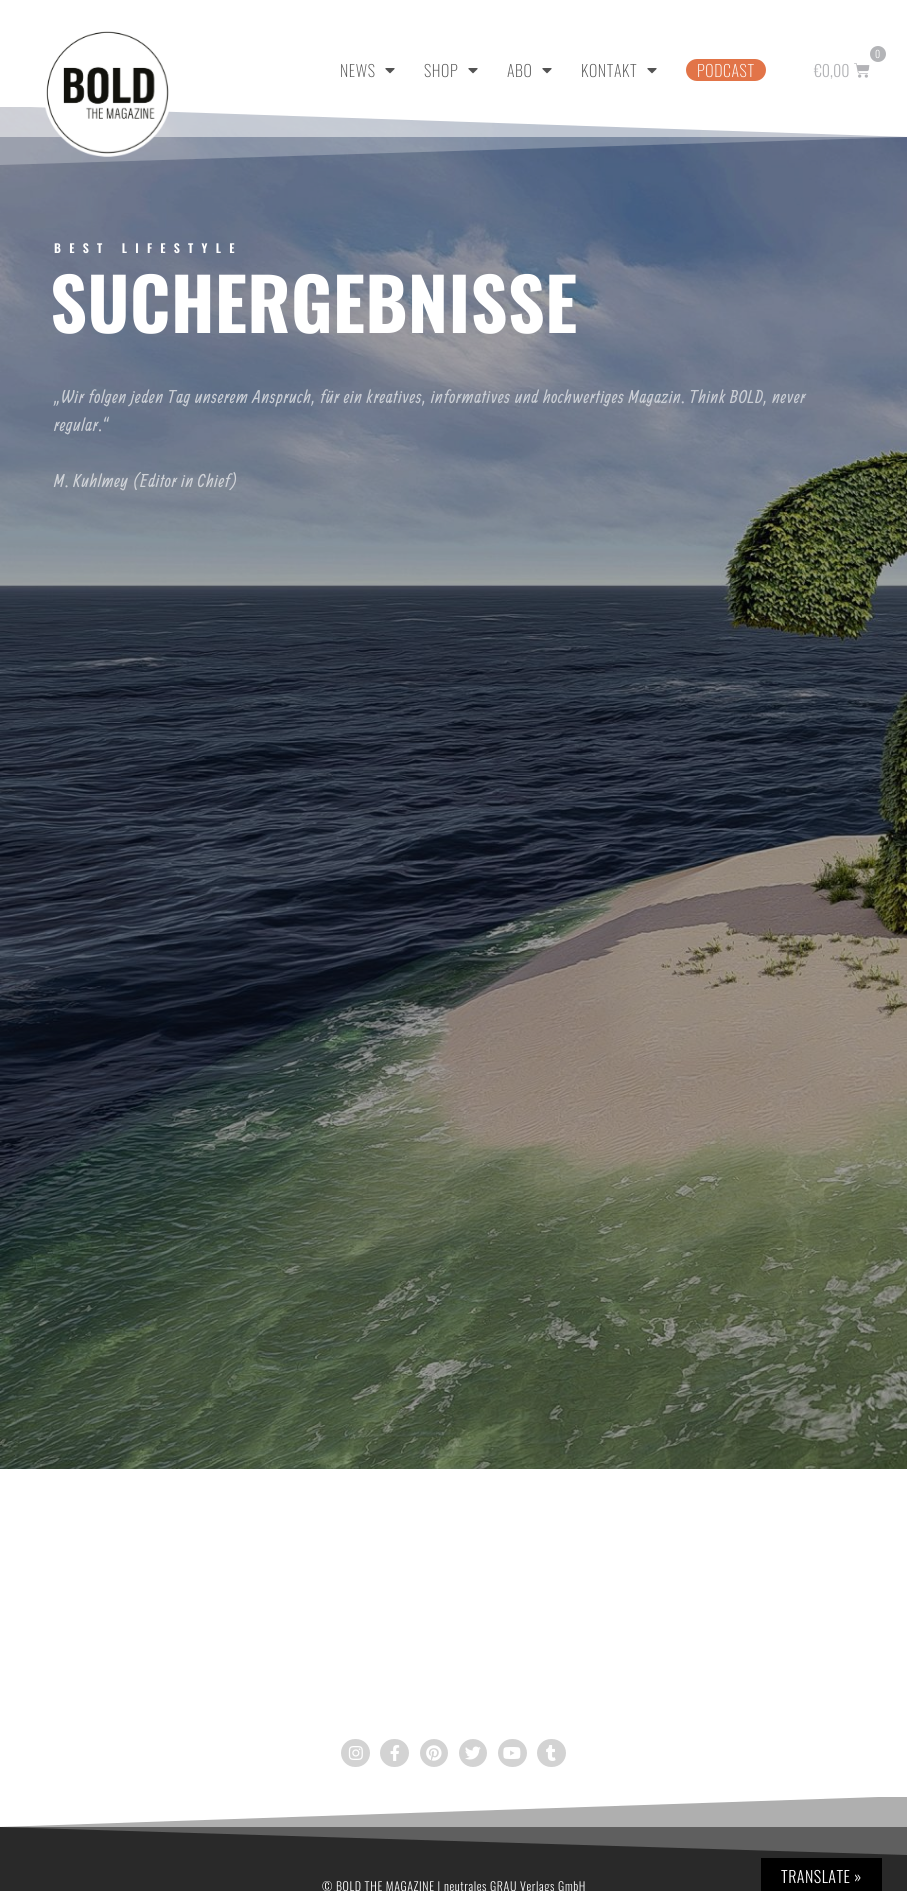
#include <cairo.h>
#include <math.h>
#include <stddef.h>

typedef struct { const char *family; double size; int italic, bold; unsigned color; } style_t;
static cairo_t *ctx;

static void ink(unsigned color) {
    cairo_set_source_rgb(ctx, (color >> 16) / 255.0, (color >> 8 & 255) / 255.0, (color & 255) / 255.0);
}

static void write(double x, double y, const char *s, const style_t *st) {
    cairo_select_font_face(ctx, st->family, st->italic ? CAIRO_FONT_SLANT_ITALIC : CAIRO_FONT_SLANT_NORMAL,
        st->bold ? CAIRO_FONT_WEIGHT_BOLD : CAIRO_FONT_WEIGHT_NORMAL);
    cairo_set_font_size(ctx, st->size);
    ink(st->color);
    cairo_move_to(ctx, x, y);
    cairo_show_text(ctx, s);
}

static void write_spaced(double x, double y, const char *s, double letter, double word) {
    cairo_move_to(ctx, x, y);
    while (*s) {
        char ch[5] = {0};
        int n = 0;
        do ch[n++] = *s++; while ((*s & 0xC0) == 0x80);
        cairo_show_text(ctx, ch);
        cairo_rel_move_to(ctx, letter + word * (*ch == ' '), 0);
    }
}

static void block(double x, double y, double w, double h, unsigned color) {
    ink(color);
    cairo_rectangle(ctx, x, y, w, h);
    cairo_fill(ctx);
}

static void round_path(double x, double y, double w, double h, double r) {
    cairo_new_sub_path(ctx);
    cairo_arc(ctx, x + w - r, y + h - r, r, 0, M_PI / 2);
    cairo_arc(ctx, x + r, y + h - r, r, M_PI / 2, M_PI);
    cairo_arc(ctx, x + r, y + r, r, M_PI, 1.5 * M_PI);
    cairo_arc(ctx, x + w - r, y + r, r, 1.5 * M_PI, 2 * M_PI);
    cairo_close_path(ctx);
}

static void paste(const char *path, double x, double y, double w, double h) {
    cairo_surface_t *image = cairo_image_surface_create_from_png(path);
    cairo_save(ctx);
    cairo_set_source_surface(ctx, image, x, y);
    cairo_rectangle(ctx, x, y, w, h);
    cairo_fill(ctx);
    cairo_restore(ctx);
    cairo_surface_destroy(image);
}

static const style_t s1 = {"Oswald Light", 10, 0, 0, 0xffffff};
static const style_t s2 = {"Oswald Light", 16, 0, 0, 0xb3b4b7};

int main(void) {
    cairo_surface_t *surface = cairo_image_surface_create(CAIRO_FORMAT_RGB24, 907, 1891);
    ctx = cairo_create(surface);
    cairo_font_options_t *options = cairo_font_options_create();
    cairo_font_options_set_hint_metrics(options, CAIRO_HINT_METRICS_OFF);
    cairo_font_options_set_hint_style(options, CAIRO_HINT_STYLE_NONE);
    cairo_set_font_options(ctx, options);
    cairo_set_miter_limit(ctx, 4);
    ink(0xffffff);
    cairo_paint(ctx);
    paste("pic4.png", 0, 107, 907, 1362);
    ink(0xffffff);
    cairo_new_path(ctx);
    cairo_move_to(ctx, 0, 106);
    cairo_line_to(ctx, 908, 106);
    cairo_line_to(ctx, 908, 137);
    cairo_close_path(ctx);
    cairo_fill(ctx);
    cairo_set_source_rgba(ctx, 1, 1, 1, 0.5);
    cairo_rectangle(ctx, 0, 107, 907, 30);
    cairo_fill(ctx);
    cairo_set_source_rgba(ctx, 1, 1, 1, 0.25);
    cairo_new_path(ctx);
    cairo_move_to(ctx, 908, 106);
    cairo_line_to(ctx, 0, 106);
    cairo_line_to(ctx, 0, 165);
    cairo_line_to(ctx, 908, 137);
    cairo_close_path(ctx);
    cairo_fill(ctx);
    paste("pic1.png", 45, 31, 124, 126);
    cairo_select_font_face(ctx, "Oswald ExtraLight", CAIRO_FONT_SLANT_NORMAL, CAIRO_FONT_WEIGHT_NORMAL);
    cairo_set_font_size(ctx, 16);
    ink(0x535353);
    write_spaced(340, 77, "NEWS", 0.6, 0);
    paste("pic2.png", 385, 68, 10, 6);
    write_spaced(424, 77, "SHOP", 0.6, 0);
    paste("pic2.png", 468, 68, 10, 6);
    write_spaced(507, 77, "ABO", 0.6, 0);
    paste("pic2.png", 542, 68, 10, 6);
    write_spaced(581, 77, "KONTAKT", 0.6, 0);
    paste("pic2.png", 647, 68, 10, 6);
    ink(0xe27448);
    round_path(686, 59, 80, 22, 11);
    cairo_fill(ctx);
    ink(0xffffff);
    write_spaced(697, 77, "PODCAST", 0.6, 0);
    ink(0xb3b4b7);
    cairo_new_path(ctx);
    cairo_arc(ctx, 878, 54, 8, 0, 2 * M_PI);
    cairo_fill(ctx);
    write(875, 58, "0", &s1);
    paste("pic3.png", 854, 63, 16, 15);
    write(814, 77, "€0,00", &s2);
    cairo_select_font_face(ctx, "Oswald SemiBold", CAIRO_FONT_SLANT_NORMAL, CAIRO_FONT_WEIGHT_NORMAL);
    cairo_set_font_size(ctx, 12);
    ink(0xffffff);
    write_spaced(54, 253, "BEST LIFESTYLE", 8.25, 0);
    cairo_select_font_face(ctx, "Oswald", CAIRO_FONT_SLANT_NORMAL, CAIRO_FONT_WEIGHT_BOLD);
    cairo_set_font_size(ctx, 72);
    write_spaced(50, 333, "SUCHERGEBNISSE", 0.25, 0);
    cairo_select_font_face(ctx, "Allan", CAIRO_FONT_SLANT_NORMAL, CAIRO_FONT_WEIGHT_NORMAL);
    cairo_set_font_size(ctx, 18);
    ink(0xcaced5);
    write_spaced(54, 403, "„Wir folgen jeden Tag unserem Anspruch, für ein kreatives, informatives", 0.7, 0);
    write_spaced(515, 403, "und hochwertiges Magazin. Think BOLD, never", 0.7, 0);
    write_spaced(54, 431, "regular.“", 0.7, 0);
    ink(0xd0d3d8);
    write_spaced(54, 487, "M. Kuhlmey (Editor in Chief)", 0.7, 0);
    block(0, 1827, 907, 64, 0x292929);
    block(761, 1858, 121, 33, 0x000000);
    cairo_select_font_face(ctx, "Oswald Light", CAIRO_FONT_SLANT_NORMAL, CAIRO_FONT_WEIGHT_NORMAL);
    cairo_set_font_size(ctx, 16);
    ink(0xffffff);
    write_spaced(781, 1883, "TRANSLATE »", 0.5, 0);
    ink(0xd3d3d3);
    round_path(341, 1739, 29, 28, 14);
    cairo_fill(ctx);
    paste("pic5.png", 348, 1746, 15, 14);
    round_path(380, 1739, 29, 28, 14);
    cairo_fill(ctx);
    paste("pic6.png", 390, 1745, 10, 16);
    cairo_arc(ctx, 434, 1753, 14, 0, 2 * M_PI);
    cairo_fill(ctx);
    paste("pic7.png", 426, 1745, 16, 16);
    cairo_arc(ctx, 473, 1753, 14, 0, 2 * M_PI);
    cairo_fill(ctx);
    paste("pic8.png", 465, 1746, 16, 14);
    round_path(498, 1739, 29, 28, 14);
    cairo_fill(ctx);
    paste("pic9.png", 503, 1747, 18, 12);
    round_path(537, 1739, 29, 28, 14);
    cairo_fill(ctx);
    paste("pic10.png", 546, 1745, 10, 16);
    block(0, 1797, 907, 30, 0x949494);
    ink(0xffffff);
    cairo_new_path(ctx);
    cairo_move_to(ctx, 907, 1796);
    cairo_line_to(ctx, -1, 1796);
    cairo_line_to(ctx, -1, 1827);
    cairo_close_path(ctx);
    cairo_fill(ctx);
    cairo_set_source_rgba(ctx, 1, 1, 1, 0.25);
    cairo_new_path(ctx);
    cairo_move_to(ctx, -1, 1796);
    cairo_line_to(ctx, 907, 1796);
    cairo_line_to(ctx, 907, 1855);
    cairo_line_to(ctx, -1, 1827);
    cairo_close_path(ctx);
    cairo_fill(ctx);
    cairo_set_font_size(ctx, 12);
    ink(0xffffff);
    write_spaced(322, 1891, "© BOLD THE MAGAZINE | neutrales GRAU Verlags GmbH", 0.6, 0);
    cairo_surface_write_to_png(surface, "screenshot.png");
    cairo_font_options_destroy(options);
    cairo_destroy(ctx);
    cairo_surface_destroy(surface);
    return 0;
}
